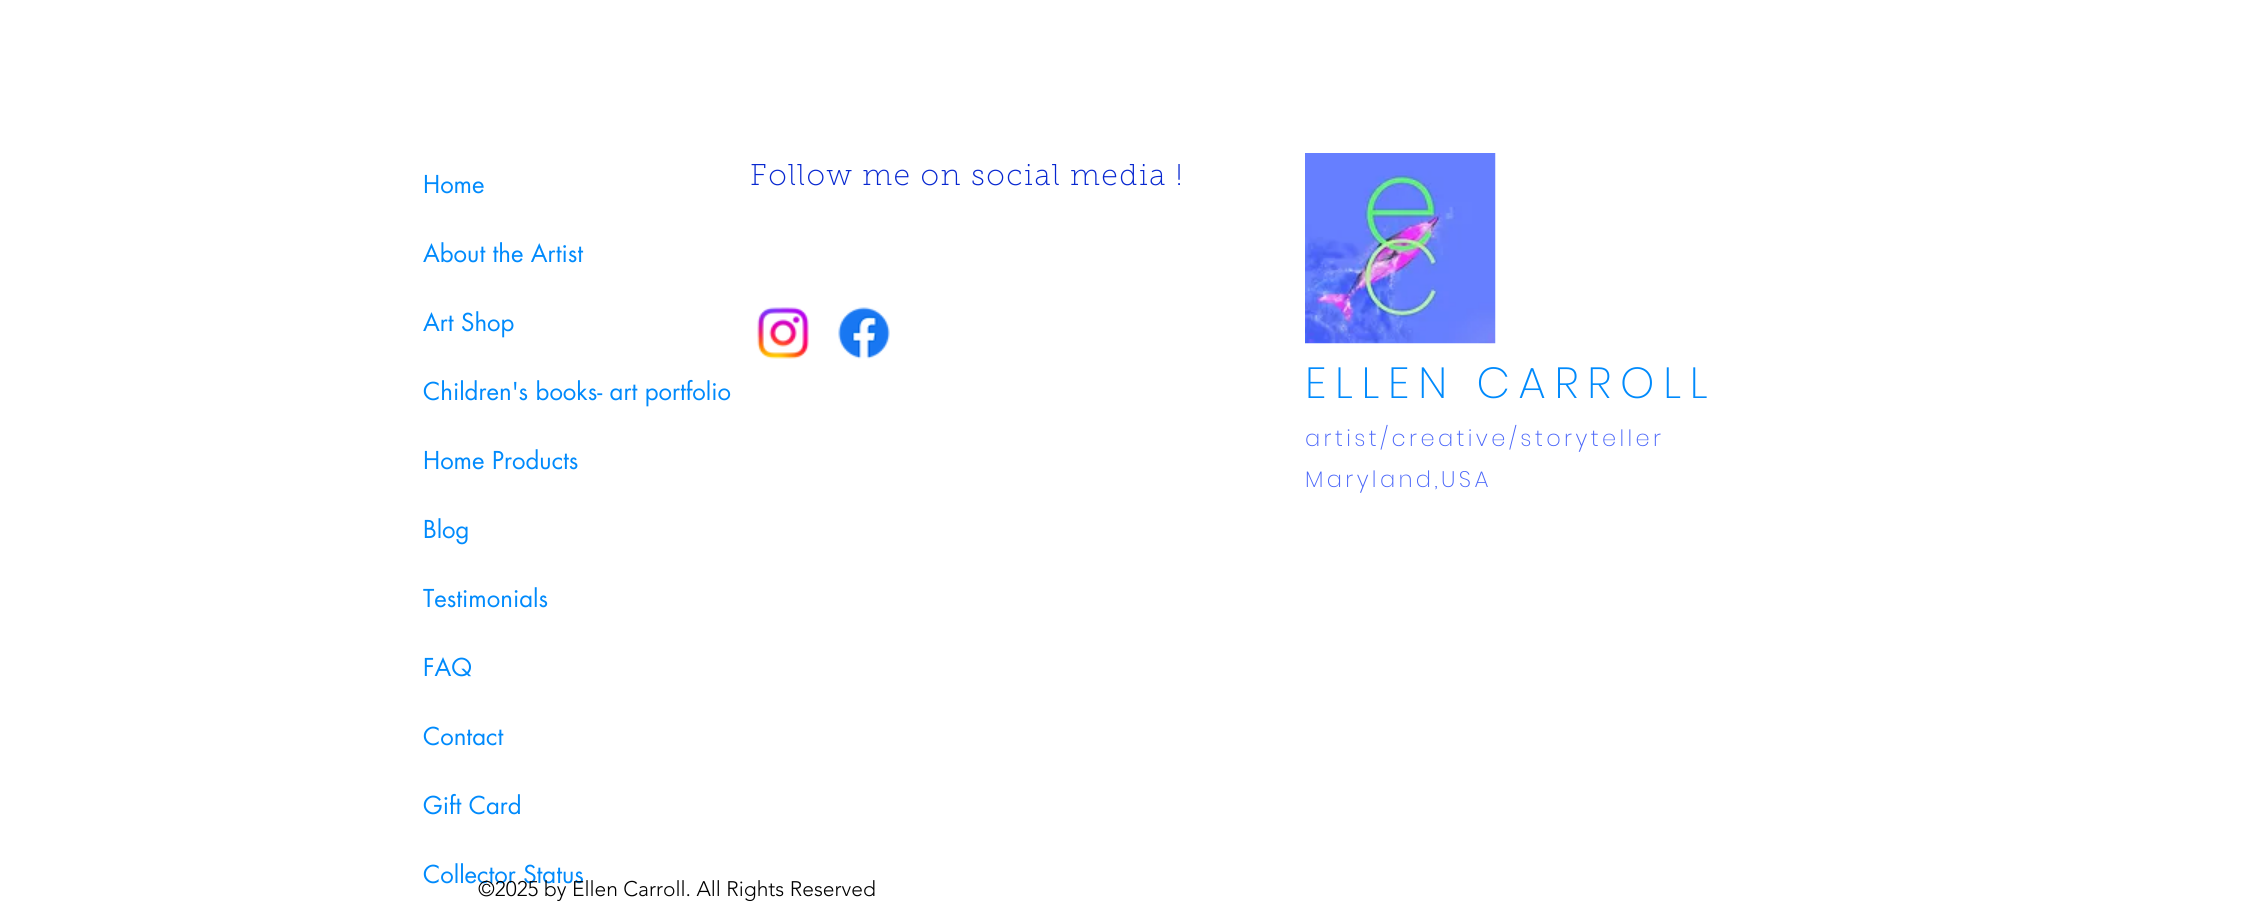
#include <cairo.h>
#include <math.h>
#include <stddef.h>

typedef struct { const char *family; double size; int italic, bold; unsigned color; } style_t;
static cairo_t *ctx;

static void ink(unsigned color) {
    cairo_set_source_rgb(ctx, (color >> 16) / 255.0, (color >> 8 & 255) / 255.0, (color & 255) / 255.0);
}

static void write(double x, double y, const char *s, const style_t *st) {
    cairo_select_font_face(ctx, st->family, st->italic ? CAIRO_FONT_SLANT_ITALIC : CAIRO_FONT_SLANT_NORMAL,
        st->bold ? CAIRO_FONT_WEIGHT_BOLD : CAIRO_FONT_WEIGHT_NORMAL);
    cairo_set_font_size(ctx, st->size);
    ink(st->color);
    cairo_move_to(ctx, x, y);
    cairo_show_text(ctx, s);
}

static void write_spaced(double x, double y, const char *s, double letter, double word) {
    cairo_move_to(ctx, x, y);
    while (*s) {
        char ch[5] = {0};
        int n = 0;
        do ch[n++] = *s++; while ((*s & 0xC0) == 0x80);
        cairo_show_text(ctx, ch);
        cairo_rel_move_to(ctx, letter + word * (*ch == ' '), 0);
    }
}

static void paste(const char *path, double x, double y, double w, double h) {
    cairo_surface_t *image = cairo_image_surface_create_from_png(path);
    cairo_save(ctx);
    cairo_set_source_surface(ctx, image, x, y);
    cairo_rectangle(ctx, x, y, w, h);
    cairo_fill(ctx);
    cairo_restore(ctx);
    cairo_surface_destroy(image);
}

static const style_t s1 = {"futura", 24, 0, 0, 0x008afc};
static const style_t s2 = {"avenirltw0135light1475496 Light", 21, 0, 0, 0x000000};

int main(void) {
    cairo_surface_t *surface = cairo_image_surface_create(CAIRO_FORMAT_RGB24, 2259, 908);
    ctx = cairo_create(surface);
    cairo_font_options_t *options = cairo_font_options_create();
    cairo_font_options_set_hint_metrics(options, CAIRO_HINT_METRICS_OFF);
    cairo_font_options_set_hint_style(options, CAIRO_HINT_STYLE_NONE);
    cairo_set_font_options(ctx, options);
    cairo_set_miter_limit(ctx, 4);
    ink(0xffffff);
    cairo_paint(ctx);
    write(423, 193, "Home", &s1);
    write(423, 262, "About the Artist", &s1);
    write(423, 331, "Art Shop", &s1);
    write(423, 400, "Children's books- art portfolio", &s1);
    write(423, 469, "Home Products", &s1);
    write(423, 538, "Blog", &s1);
    write(423, 607, "Testimonials", &s1);
    write(423, 676, "FAQ", &s1);
    write(423, 745, "Contact", &s1);
    write(423, 814, "Gift Card", &s1);
    write(423, 883, "Collector Status", &s1);
    cairo_select_font_face(ctx, "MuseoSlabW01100 Thin", CAIRO_FONT_SLANT_NORMAL, CAIRO_FONT_WEIGHT_NORMAL);
    cairo_set_font_size(ctx, 30);
    ink(0x0727d0);
    write_spaced(750, 185, "Follow me on social media !", 1.5, 0);
    paste("pic1.png", 1305, 153, 191, 191);
    paste("pic2.png", 757, 307, 52, 52);
    paste("pic3.png", 838, 307, 52, 52);
    cairo_select_font_face(ctx, "Poppins ExtraLight", CAIRO_FONT_SLANT_NORMAL, CAIRO_FONT_WEIGHT_NORMAL);
    cairo_set_font_size(ctx, 43.5);
    ink(0x008afc);
    write_spaced(1305, 398, "ELLEN CARROLL", 8.75, 0);
    cairo_set_font_size(ctx, 22.5);
    ink(0x4a66f9);
    write_spaced(1305, 446, "artist/creative/storyteller", 3.4, 0);
    write_spaced(1305, 487, "Maryland,USA", 3.4, 0);
    write(478, 896, "©2025 by Ellen Carroll. All Rights Reserved", &s2);
    cairo_surface_write_to_png(surface, "screenshot.png");
    cairo_font_options_destroy(options);
    cairo_destroy(ctx);
    cairo_surface_destroy(surface);
    return 0;
}
